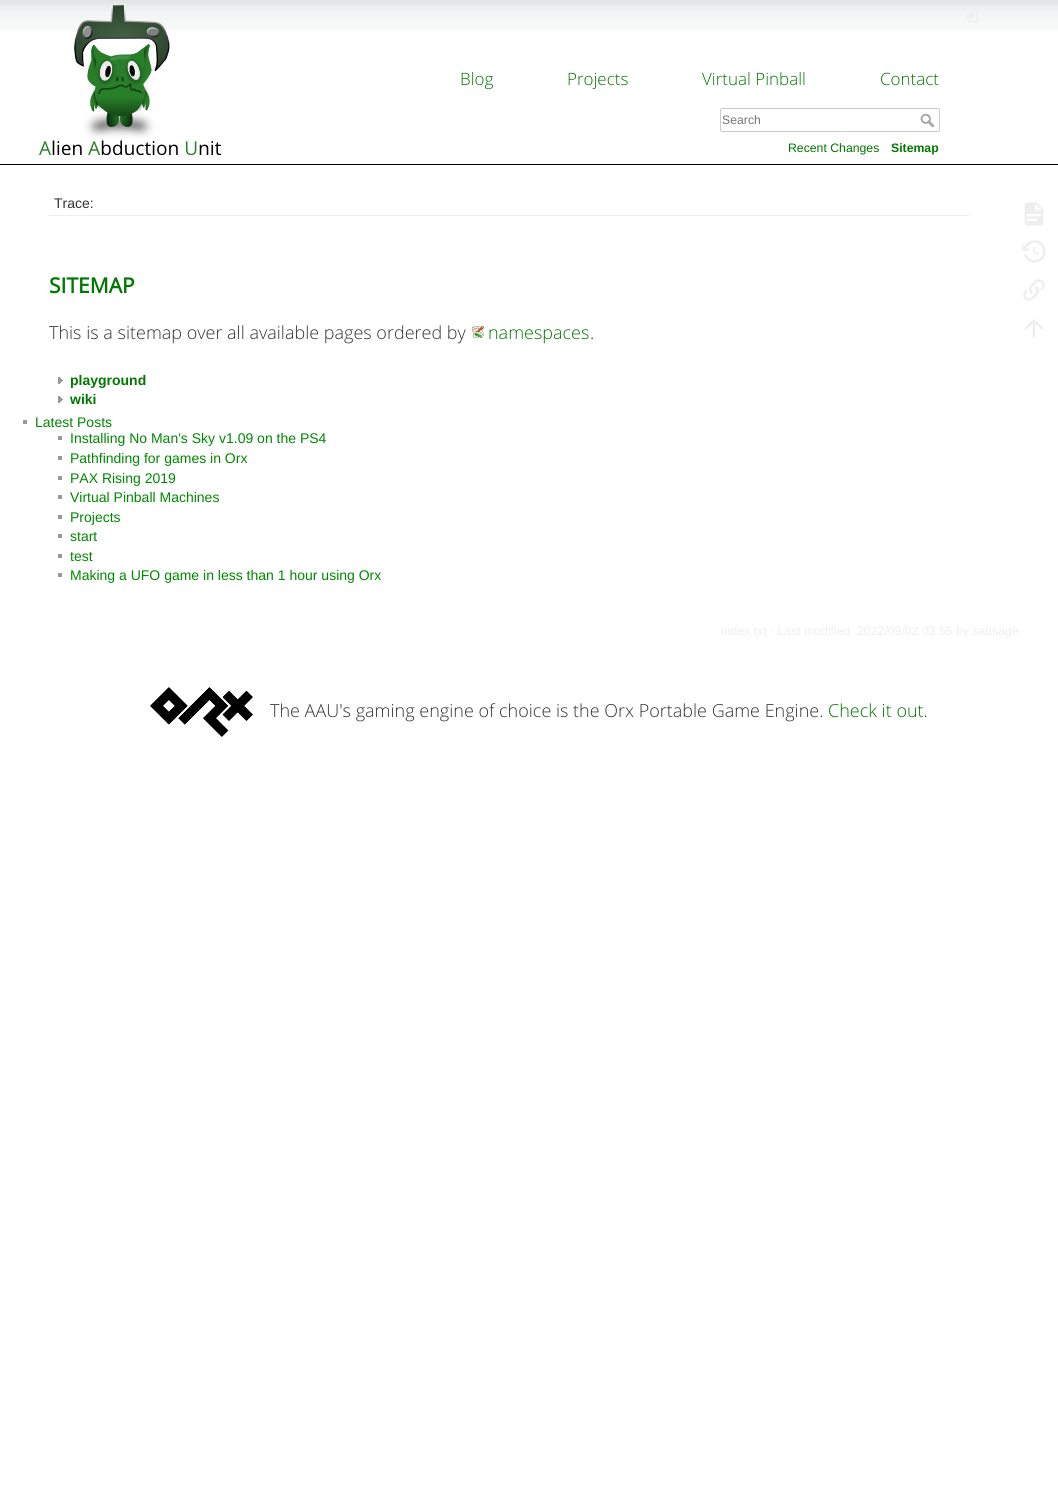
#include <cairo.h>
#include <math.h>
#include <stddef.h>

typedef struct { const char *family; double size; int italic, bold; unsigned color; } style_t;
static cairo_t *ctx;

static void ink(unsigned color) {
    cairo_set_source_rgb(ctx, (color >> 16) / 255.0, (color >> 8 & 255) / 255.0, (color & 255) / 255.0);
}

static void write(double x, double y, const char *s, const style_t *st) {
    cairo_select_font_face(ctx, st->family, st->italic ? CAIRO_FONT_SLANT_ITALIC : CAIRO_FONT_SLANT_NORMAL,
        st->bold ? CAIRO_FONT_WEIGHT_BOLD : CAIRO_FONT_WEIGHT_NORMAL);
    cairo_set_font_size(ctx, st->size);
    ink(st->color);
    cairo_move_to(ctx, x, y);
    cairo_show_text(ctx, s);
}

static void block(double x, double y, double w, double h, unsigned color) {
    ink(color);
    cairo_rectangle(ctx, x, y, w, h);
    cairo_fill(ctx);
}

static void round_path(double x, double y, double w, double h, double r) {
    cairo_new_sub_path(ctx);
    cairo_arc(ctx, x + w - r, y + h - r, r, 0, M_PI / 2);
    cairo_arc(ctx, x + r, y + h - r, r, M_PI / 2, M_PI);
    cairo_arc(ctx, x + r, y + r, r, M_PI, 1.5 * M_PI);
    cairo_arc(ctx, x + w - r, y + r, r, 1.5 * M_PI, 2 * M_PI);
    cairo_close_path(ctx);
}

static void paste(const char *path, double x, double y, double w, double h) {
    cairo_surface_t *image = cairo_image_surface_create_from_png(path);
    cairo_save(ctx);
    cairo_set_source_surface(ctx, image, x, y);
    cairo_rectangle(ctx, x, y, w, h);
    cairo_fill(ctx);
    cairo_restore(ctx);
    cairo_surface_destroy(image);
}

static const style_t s1 = {"Open Sans Light", 17, 0, 0, 0x007700};
static const style_t s2 = {"Liberation Sans", 12.25, 0, 0, 0x757575};
static const style_t s3 = {"Liberation Sans", 12.25, 0, 0, 0x007700};
static const style_t s4 = {"Liberation Sans", 12.25, 0, 1, 0x007700};
static const style_t s5 = {"Liberation Sans", 14, 0, 0, 0x333333};
static const style_t s6 = {"Open Sans", 21, 0, 1, 0x007700};
static const style_t s7 = {"Open Sans Light", 18, 0, 0, 0x333333};
static const style_t s8 = {"Open Sans Light", 18, 0, 0, 0x007700};
static const style_t s9 = {"Liberation Sans", 14, 0, 1, 0x007700};
static const style_t s10 = {"Liberation Sans", 14, 0, 0, 0x008800};
static const style_t s11 = {"Liberation Sans", 12.25, 0, 0, 0xeeeeee};

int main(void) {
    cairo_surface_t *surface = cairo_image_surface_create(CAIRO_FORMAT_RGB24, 1058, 1486);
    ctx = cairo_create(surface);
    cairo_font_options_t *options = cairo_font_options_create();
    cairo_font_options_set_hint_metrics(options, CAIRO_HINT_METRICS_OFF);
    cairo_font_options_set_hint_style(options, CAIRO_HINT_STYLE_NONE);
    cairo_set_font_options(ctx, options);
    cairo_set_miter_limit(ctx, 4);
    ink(0xffffff);
    cairo_paint(ctx);
    paste("pic1.png", 0, 0, 1058, 31);
    block(0, 164, 1058, 1, 0x000000);
    paste("pic2.png", 39, 5, 182, 150);
    paste("pic3.png", 966, 11, 12, 12);
    write(460, 85, "Blog", &s1);
    write(567, 85, "Projects", &s1);
    write(702, 85, "Virtual Pinball", &s1);
    write(880, 85, "Contact", &s1);
    round_path(720.5, 108.5, 219, 23, 1.5);
    ink(0xcccccc);
    cairo_set_line_width(ctx, 1);
    cairo_stroke(ctx);
    write(722, 124, "Search", &s2);
    paste("pic4.png", 920, 113, 14, 14);
    write(788, 152, "Recent Changes", &s3);
    write(891, 152, "Sitemap", &s4);
    block(49, 215, 920, 1, 0xeeeeee);
    write(54, 208, "Trace:", &s5);
    write(49, 293, "SITEMAP", &s6);
    write(49, 339, "This is a sitemap over all available pages ordered by", &s7);
    paste("pic5.png", 472, 326, 12, 12);
    write(488, 339, "namespaces", &s8);
    write(590, 339, ".", &s7);
    paste("pic6.png", 58, 377, 5, 7);
    write(70, 385, "playground", &s9);
    paste("pic6.png", 58, 396, 5, 7);
    write(70, 404, "wiki", &s9);
    block(23, 420, 4, 4, 0x999999);
    write(35, 427, "Latest Posts", &s10);
    block(58, 436, 4, 4, 0x999999);
    write(70, 443, "Installing No Man's Sky v1.09 on the PS4", &s10);
    block(58, 456, 4, 4, 0x999999);
    write(70, 463, "Pathfinding for games in Orx", &s10);
    block(58, 476, 4, 4, 0x999999);
    write(70, 483, "PAX Rising 2019", &s10);
    block(58, 495, 4, 4, 0x999999);
    write(70, 502, "Virtual Pinball Machines", &s10);
    block(58, 515, 4, 4, 0x999999);
    write(70, 522, "Projects", &s10);
    block(58, 534, 4, 4, 0x999999);
    write(70, 541, "start", &s10);
    block(58, 554, 4, 4, 0x999999);
    write(70, 561, "test", &s10);
    block(58, 573, 4, 4, 0x999999);
    write(70, 580, "Making a UFO game in less than 1 hour using Orx", &s10);
    write(721, 635, "index.txt · Last modified: 2022/09/02 03:55 by sausage", &s11);
    paste("pic7.png", 1024, 202, 20, 24);
    paste("pic8.png", 1022, 240, 24, 23);
    paste("pic9.png", 1023, 279, 22, 22);
    paste("pic10.png", 1025, 319, 18, 19);
    paste("pic11.png", 150, 687, 103, 50);
    write(270, 717, "The AAU's gaming engine of choice is the Orx Portable Game Engine.", &s7);
    write(828, 717, "Check it out.", &s8);
    cairo_surface_write_to_png(surface, "screenshot.png");
    cairo_font_options_destroy(options);
    cairo_destroy(ctx);
    cairo_surface_destroy(surface);
    return 0;
}
